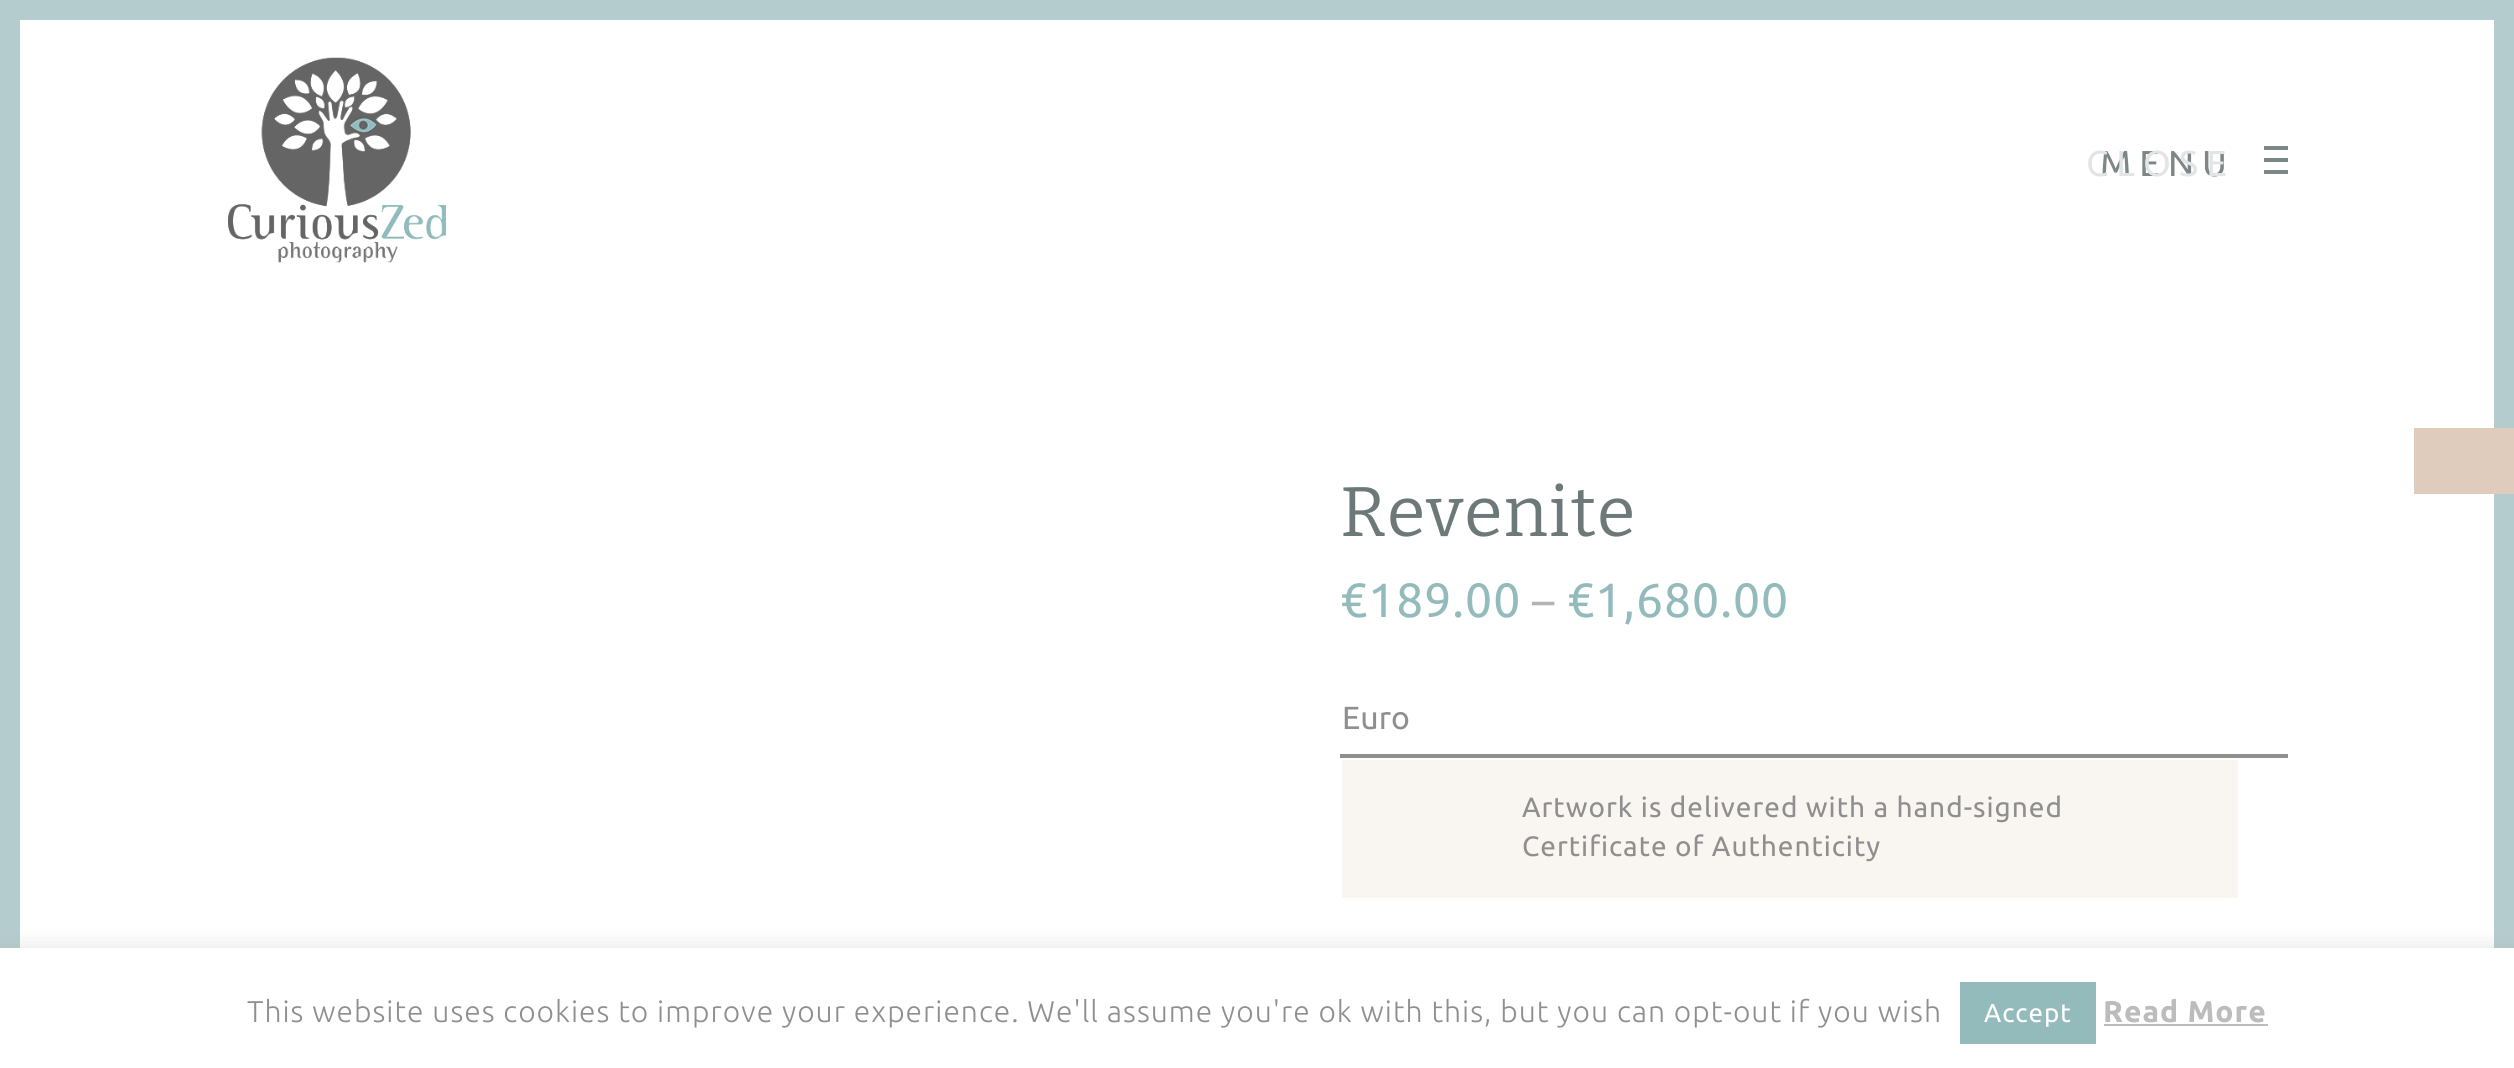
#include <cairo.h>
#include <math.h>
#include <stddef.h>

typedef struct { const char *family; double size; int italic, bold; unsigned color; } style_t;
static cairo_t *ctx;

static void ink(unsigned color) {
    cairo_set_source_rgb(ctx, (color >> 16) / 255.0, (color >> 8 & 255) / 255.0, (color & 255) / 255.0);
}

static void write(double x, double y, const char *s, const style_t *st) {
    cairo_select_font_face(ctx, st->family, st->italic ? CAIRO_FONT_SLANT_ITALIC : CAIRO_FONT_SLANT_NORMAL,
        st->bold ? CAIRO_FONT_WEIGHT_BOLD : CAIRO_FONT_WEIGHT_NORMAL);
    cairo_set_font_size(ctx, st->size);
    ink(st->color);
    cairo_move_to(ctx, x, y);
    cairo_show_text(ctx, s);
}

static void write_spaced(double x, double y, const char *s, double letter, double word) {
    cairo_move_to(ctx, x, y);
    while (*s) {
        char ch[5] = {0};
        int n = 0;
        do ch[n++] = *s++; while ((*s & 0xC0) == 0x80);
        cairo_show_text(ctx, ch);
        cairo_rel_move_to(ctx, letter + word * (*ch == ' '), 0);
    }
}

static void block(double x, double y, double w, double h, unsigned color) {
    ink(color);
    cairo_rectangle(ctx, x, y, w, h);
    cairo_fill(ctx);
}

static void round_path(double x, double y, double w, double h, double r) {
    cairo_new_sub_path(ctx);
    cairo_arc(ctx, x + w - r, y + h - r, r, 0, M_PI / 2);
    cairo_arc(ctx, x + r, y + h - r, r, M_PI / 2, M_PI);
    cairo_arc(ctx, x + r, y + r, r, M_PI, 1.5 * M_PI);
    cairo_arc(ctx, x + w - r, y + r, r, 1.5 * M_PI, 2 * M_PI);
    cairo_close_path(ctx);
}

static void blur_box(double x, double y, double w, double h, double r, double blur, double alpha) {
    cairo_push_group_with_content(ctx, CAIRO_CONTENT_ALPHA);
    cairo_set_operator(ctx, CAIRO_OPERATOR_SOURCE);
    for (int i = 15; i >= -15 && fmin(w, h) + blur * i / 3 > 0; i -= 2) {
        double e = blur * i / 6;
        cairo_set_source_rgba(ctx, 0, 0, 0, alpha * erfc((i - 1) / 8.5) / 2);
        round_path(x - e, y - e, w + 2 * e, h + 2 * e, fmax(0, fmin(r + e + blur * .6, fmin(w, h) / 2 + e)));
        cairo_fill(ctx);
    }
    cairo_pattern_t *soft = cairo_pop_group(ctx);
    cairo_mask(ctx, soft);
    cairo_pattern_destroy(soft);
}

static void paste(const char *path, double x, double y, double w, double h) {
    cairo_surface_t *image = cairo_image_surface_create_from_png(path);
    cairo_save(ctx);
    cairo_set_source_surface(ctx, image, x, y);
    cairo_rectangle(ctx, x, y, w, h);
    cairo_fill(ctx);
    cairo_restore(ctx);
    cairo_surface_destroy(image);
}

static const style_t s1 = {"Ubuntu", 32, 0, 0, 0x8f8f8f};

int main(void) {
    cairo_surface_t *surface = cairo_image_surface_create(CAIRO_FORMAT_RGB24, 2514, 1068);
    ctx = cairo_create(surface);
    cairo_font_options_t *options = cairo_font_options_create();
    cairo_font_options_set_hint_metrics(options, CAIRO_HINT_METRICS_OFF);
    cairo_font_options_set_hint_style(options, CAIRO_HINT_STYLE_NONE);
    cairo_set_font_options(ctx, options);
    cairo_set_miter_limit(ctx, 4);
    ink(0xb5ccce);
    cairo_paint(ctx);
    block(20, 20, 2474, 928, 0xffffff);
    paste("pic1.png", 228, 57, 218, 206);
    cairo_select_font_face(ctx, "Ubuntu", CAIRO_FONT_SLANT_NORMAL, CAIRO_FONT_WEIGHT_NORMAL);
    cairo_set_font_size(ctx, 36);
    ink(0x7d8787);
    write_spaced(2100, 176, "MENU", 8, 0);
    ink(0xe3e5e5);
    write_spaced(2086, 176, "CLOSE", 8, 0);
    block(2264, 146, 24, 4, 0x7d8787);
    block(2264, 158, 24, 4, 0x7d8787);
    block(2264, 170, 24, 4, 0x7d8787);
    cairo_select_font_face(ctx, "Bitter", CAIRO_FONT_SLANT_NORMAL, CAIRO_FONT_WEIGHT_NORMAL);
    cairo_set_font_size(ctx, 70);
    ink(0x6d7878);
    write_spaced(1340, 536, "Revenite", 1, 0);
    cairo_select_font_face(ctx, "Ubuntu", CAIRO_FONT_SLANT_NORMAL, CAIRO_FONT_WEIGHT_NORMAL);
    cairo_set_font_size(ctx, 48);
    ink(0x94bbbc);
    write_spaced(1340, 617, "€189.00", 1, 0);
    cairo_set_font_size(ctx, 45);
    ink(0xb3b3b3);
    write_spaced(1532, 617, "–", 1, 0);
    cairo_set_font_size(ctx, 48);
    ink(0x94bbbc);
    write_spaced(1567, 617, "€1,680.00", 1, 0);
    block(1340, 754, 948, 4, 0x8f8f8f);
    write(1342, 729, "Euro", &s1);
    block(1342, 760, 896, 138, 0xf9f6f2);
    cairo_set_font_size(ctx, 28);
    ink(0x8f8f8f);
    write_spaced(1522, 817, "Artwork is delivered with a hand-signed", 1, 0);
    write_spaced(1522, 856, "Certificate of Authenticity", 1, 0);
    block(2414, 428, 100, 66, 0xe0ccbd);
    ink(0xacabab);
    blur_box(0, 946, 2514, 120, 0, 10, 0.3);
    block(0, 948, 2514, 120, 0xffffff);
    cairo_select_font_face(ctx, "Ubuntu Light", CAIRO_FONT_SLANT_NORMAL, CAIRO_FONT_WEIGHT_NORMAL);
    cairo_set_font_size(ctx, 30);
    ink(0x8f8f8f);
    write_spaced(247, 1022, "This website uses cookies to improve your experience. We'll assume you're ok with this, but you can opt-out if you wish", 1, 0);
    block(1960, 982, 136, 62, 0x94bbbc);
    cairo_select_font_face(ctx, "Ubuntu", CAIRO_FONT_SLANT_NORMAL, CAIRO_FONT_WEIGHT_NORMAL);
    cairo_set_font_size(ctx, 26);
    ink(0xffffff);
    write_spaced(1984, 1022, "Accept", 1, 0);
    cairo_select_font_face(ctx, "Ubuntu", CAIRO_FONT_SLANT_NORMAL, CAIRO_FONT_WEIGHT_BOLD);
    cairo_set_font_size(ctx, 30);
    ink(0xbcbcbc);
    write_spaced(2103, 1022, "Read More", 1, 0);
    block(2104, 1024, 164, 2, 0xbcbcbc);
    cairo_surface_write_to_png(surface, "screenshot.png");
    cairo_font_options_destroy(options);
    cairo_destroy(ctx);
    cairo_surface_destroy(surface);
    return 0;
}
